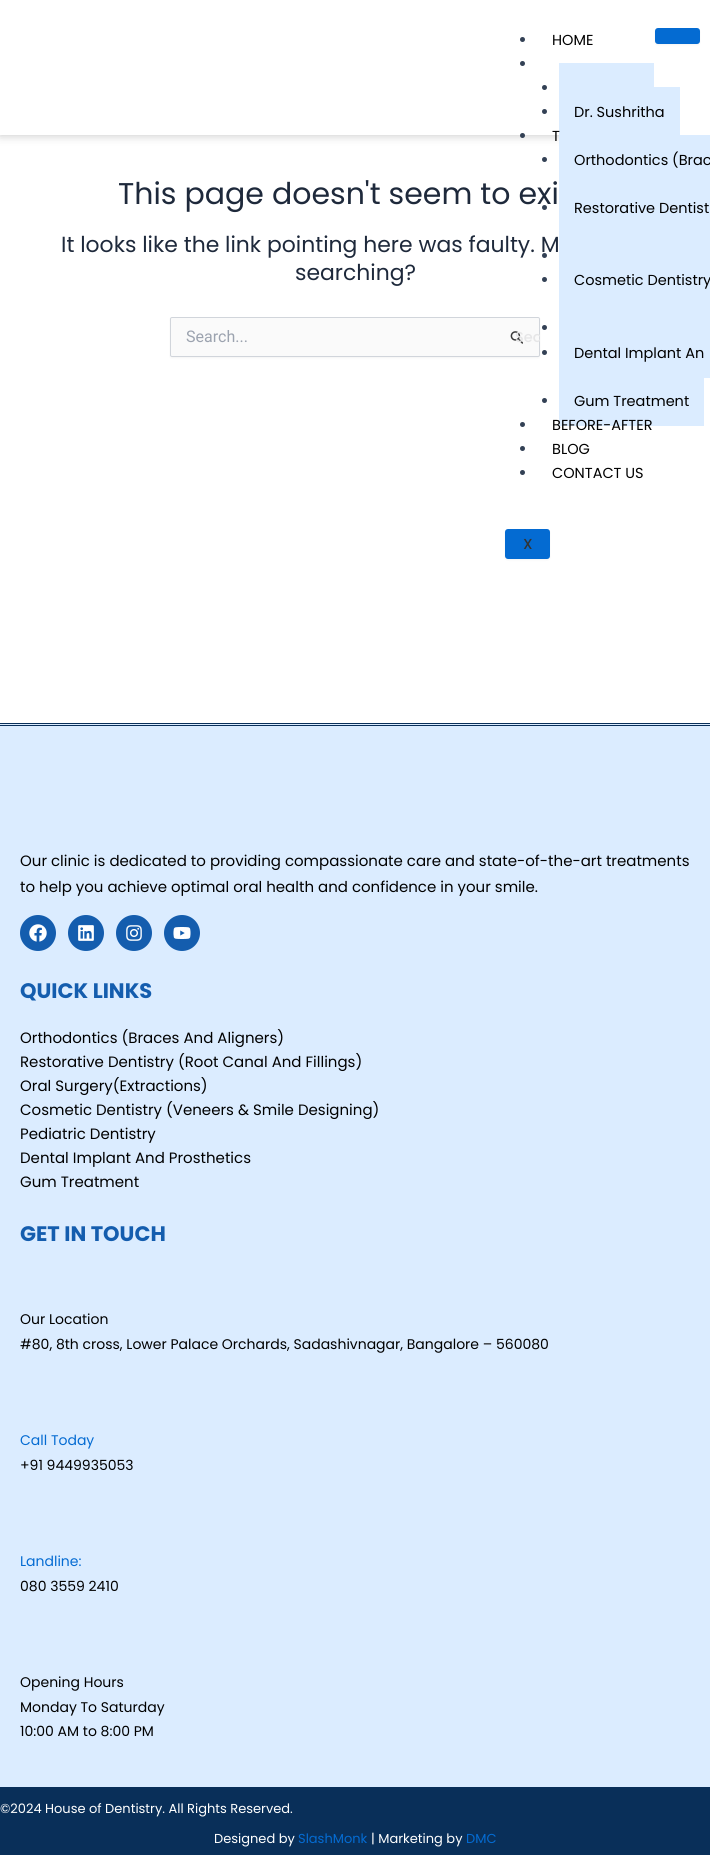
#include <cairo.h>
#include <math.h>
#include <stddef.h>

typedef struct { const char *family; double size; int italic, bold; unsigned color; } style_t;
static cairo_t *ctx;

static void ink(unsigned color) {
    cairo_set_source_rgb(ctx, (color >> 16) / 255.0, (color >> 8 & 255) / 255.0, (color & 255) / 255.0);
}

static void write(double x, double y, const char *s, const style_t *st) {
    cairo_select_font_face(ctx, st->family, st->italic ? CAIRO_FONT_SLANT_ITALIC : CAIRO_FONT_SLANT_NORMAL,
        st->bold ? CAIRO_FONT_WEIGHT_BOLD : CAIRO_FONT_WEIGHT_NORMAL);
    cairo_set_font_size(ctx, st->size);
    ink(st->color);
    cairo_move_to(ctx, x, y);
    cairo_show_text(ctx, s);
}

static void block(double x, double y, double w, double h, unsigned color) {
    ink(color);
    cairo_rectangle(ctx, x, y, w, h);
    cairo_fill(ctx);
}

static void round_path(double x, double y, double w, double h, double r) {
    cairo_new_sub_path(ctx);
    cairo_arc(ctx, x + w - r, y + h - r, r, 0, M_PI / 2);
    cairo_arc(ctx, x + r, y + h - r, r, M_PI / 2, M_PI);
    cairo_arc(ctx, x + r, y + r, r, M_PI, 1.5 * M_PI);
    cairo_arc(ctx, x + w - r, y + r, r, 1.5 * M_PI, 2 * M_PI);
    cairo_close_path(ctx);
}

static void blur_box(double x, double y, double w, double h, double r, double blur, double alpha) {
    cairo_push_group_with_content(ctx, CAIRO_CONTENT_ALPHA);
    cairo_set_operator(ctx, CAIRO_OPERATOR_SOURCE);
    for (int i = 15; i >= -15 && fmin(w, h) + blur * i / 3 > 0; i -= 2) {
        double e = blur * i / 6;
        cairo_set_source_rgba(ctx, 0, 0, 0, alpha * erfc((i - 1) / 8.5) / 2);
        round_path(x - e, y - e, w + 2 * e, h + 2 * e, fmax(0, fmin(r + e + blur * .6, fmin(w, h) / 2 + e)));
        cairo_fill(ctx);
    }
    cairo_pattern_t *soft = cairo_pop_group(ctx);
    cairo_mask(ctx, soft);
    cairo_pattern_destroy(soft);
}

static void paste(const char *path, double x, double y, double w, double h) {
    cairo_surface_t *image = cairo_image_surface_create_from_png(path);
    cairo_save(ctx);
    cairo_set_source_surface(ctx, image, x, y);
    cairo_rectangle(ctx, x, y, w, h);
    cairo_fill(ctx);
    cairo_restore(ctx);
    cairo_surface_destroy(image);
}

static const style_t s1 = {"Poppins", 30, 0, 0, 0x1e293b};
static const style_t s2 = {"Poppins", 21.9, 0, 0, 0x1e293b};
static const style_t s3 = {"Roboto", 16, 0, 0, 0x9ca3af};
static const style_t s4 = {"Poppins Medium", 14.5, 0, 0, 0xe6e6e7};
static const style_t s5 = {"Poppins", 14.5, 0, 0, 0x000000};
static const style_t s6 = {"Poppins Medium", 14.5, 0, 0, 0x333333};
static const style_t s7 = {"Poppins", 15, 0, 0, 0x000000};
static const style_t s8 = {"Poppins", 21, 0, 1, 0x145dae};
static const style_t s9 = {"Poppins", 14, 0, 0, 0x000000};
static const style_t s10 = {"Poppins", 14, 0, 0, 0x046bd2};
static const style_t s11 = {"Poppins", 13, 0, 0, 0xffffff};
static const style_t s12 = {"Poppins", 13, 0, 0, 0x046bd2};

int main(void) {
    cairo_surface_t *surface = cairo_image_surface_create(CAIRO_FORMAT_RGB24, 710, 1855);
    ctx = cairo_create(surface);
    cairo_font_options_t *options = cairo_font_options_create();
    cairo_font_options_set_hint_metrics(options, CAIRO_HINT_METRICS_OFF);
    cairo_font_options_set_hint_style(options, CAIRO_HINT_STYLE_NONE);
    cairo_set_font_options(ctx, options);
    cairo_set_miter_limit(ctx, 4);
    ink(0xffffff);
    cairo_paint(ctx);
    write(118, 204, "This page doesn't seem to exi", &s1);
    write(61, 252, "It looks like the link pointing here was faulty. M", &s2);
    write(295, 280, "searching?", &s2);
    ink(0x000000);
    blur_box(170, 318, 370, 40, 2, 1, 0.05);
    ink(0xfafafa);
    round_path(170.5, 317.5, 369, 39, 1.5);
    cairo_fill_preserve(ctx);
    ink(0xd1d5db);
    cairo_set_line_width(ctx, 1);
    cairo_stroke(ctx);
    write(186, 342, "Search...", &s3);
    paste("pic1.png", 510, 331, 13, 13);
    cairo_save(ctx);
    round_path(495, 317, 45, 40, 2);
    cairo_clip(ctx);
    write(515, 342, "Sea", &s4);
    cairo_restore(ctx);
    ink(0xc3c3c3);
    blur_box(0, 0, 710, 135, 0, 5, 1);
    block(0, 0, 710, 135, 0xffffff);
    ink(0x000000);
    blur_box(655, 29, 45, 16, 3, 1, 0.05);
    ink(0x046bd2);
    round_path(655, 28, 45, 16, 3);
    cairo_fill(ctx);
    ink(0x334155);
    cairo_arc(ctx, 522.5, 39.5, 2.5, 0, 2 * M_PI);
    cairo_fill(ctx);
    write(552, 45, "HOME", &s5);
    ink(0x334155);
    cairo_new_path(ctx);
    cairo_arc(ctx, 522.5, 63.5, 2.5, 0, 2 * M_PI);
    cairo_fill(ctx);
    block(559, 63, 95, 24, 0xdbecff);
    ink(0x334155);
    cairo_arc(ctx, 544.5, 87.5, 2.5, 0, 2 * M_PI);
    cairo_fill(ctx);
    cairo_arc(ctx, 544.5, 111.5, 2.5, 0, 2 * M_PI);
    cairo_fill(ctx);
    block(559, 87, 121, 48, 0xdbecff);
    write(574, 117, "Dr. Sushritha", &s5);
    ink(0x334155);
    cairo_new_path(ctx);
    cairo_arc(ctx, 522.5, 135.5, 2.5, 0, 2 * M_PI);
    cairo_fill(ctx);
    write(552, 141, "T", &s5);
    ink(0x334155);
    cairo_new_path(ctx);
    cairo_arc(ctx, 544.5, 159.5, 2.5, 0, 2 * M_PI);
    cairo_fill(ctx);
    block(559, 135, 151, 243, 0xdbecff);
    write(574, 165, "Orthodontics (Brac", &s5);
    ink(0x334155);
    cairo_new_path(ctx);
    cairo_arc(ctx, 544.5, 207.5, 2.5, 0, 2 * M_PI);
    cairo_fill(ctx);
    write(574, 213, "Restorative Dentist", &s5);
    ink(0x334155);
    cairo_new_path(ctx);
    cairo_arc(ctx, 544.5, 255.5, 2.5, 0, 2 * M_PI);
    cairo_fill(ctx);
    cairo_arc(ctx, 544.5, 279.5, 2.5, 0, 2 * M_PI);
    cairo_fill(ctx);
    write(574, 285, "Cosmetic Dentistry", &s5);
    ink(0x334155);
    cairo_new_path(ctx);
    cairo_arc(ctx, 544.5, 327.5, 2.5, 0, 2 * M_PI);
    cairo_fill(ctx);
    cairo_arc(ctx, 544.5, 352.5, 2.5, 0, 2 * M_PI);
    cairo_fill(ctx);
    write(574, 358, "Dental Implant An", &s5);
    ink(0x334155);
    cairo_new_path(ctx);
    cairo_arc(ctx, 544.5, 400.5, 2.5, 0, 2 * M_PI);
    cairo_fill(ctx);
    block(559, 378, 145, 48, 0xdbecff);
    write(574, 406, "Gum Treatment", &s5);
    ink(0x334155);
    cairo_new_path(ctx);
    cairo_arc(ctx, 522.5, 424.5, 2.5, 0, 2 * M_PI);
    cairo_fill(ctx);
    write(552, 430, "BEFORE-AFTER", &s5);
    ink(0x334155);
    cairo_new_path(ctx);
    cairo_arc(ctx, 522.5, 448.5, 2.5, 0, 2 * M_PI);
    cairo_fill(ctx);
    write(552, 454, "BLOG", &s5);
    ink(0x334155);
    cairo_new_path(ctx);
    cairo_arc(ctx, 522.5, 472.5, 2.5, 0, 2 * M_PI);
    cairo_fill(ctx);
    write(552, 478, "CONTACT US", &s5);
    ink(0x000000);
    blur_box(505, 530, 45, 30, 3, 1, 0.05);
    ink(0x046bd2);
    round_path(505, 529, 45, 30, 3);
    cairo_fill(ctx);
    write(523, 549, "X", &s6);
    block(0, 724, 710, 1063, 0xdbecff);
    block(0, 723, 710, 1, 0x092f59);
    block(0, 725, 710, 1, 0x092f59);
    write(20, 866, "Our clinic is dedicated to providing compassionate care and state-of-the-art treatments", &s7);
    write(20, 892, "to help you achieve optimal oral health and confidence in your smile.", &s7);
    ink(0x145dae);
    cairo_new_path(ctx);
    cairo_arc(ctx, 38, 933, 18, 0, 2 * M_PI);
    cairo_fill(ctx);
    paste("pic2.png", 29, 924, 18, 18);
    cairo_arc(ctx, 86, 933, 18, 0, 2 * M_PI);
    cairo_fill(ctx);
    paste("pic3.png", 78, 925, 16, 16);
    cairo_arc(ctx, 134, 933, 18, 0, 2 * M_PI);
    cairo_fill(ctx);
    paste("pic4.png", 126, 925, 16, 16);
    cairo_arc(ctx, 182, 933, 18, 0, 2 * M_PI);
    cairo_fill(ctx);
    paste("pic5.png", 173, 927, 18, 12);
    write(20, 998, "QUICK LINKS", &s8);
    write(20, 1043, "Orthodontics (Braces And Aligners)", &s7);
    write(20, 1067, "Restorative Dentistry (Root Canal And Fillings)", &s7);
    write(20, 1091, "Oral Surgery(Extractions)", &s7);
    write(20, 1115, "Cosmetic Dentistry (Veneers & Smile Designing)", &s7);
    write(20, 1139, "Pediatric Dentistry", &s7);
    write(20, 1163, "Dental Implant And Prosthetics", &s7);
    write(20, 1187, "Gum Treatment", &s7);
    write(20, 1241, "GET IN TOUCH", &s8);
    write(20, 1324, "Our Location", &s9);
    write(20, 1349, "#80, 8th cross, Lower Palace Orchards, Sadashivnagar, Bangalore – 560080", &s9);
    write(20, 1445, "Call Today", &s10);
    write(20, 1470, "+91 9449935053", &s9);
    write(20, 1566, "Landline:", &s10);
    write(20, 1591, "080 3559 2410", &s9);
    write(20, 1687, "Opening Hours", &s9);
    write(20, 1712, "Monday To Saturday", &s9);
    write(20, 1736, "10:00 AM to 8:00 PM", &s9);
    block(0, 1787, 710, 68, 0x092f59);
    write(0, 1813, "©2024 House of Dentistry. All Rights Reserved.", &s11);
    write(214, 1843, "Designed by", &s11);
    write(298, 1843, "SlashMonk", &s12);
    write(371, 1843, "| Marketing by", &s11);
    write(466, 1843, "DMC", &s12);
    cairo_surface_write_to_png(surface, "screenshot.png");
    cairo_font_options_destroy(options);
    cairo_destroy(ctx);
    cairo_surface_destroy(surface);
    return 0;
}
